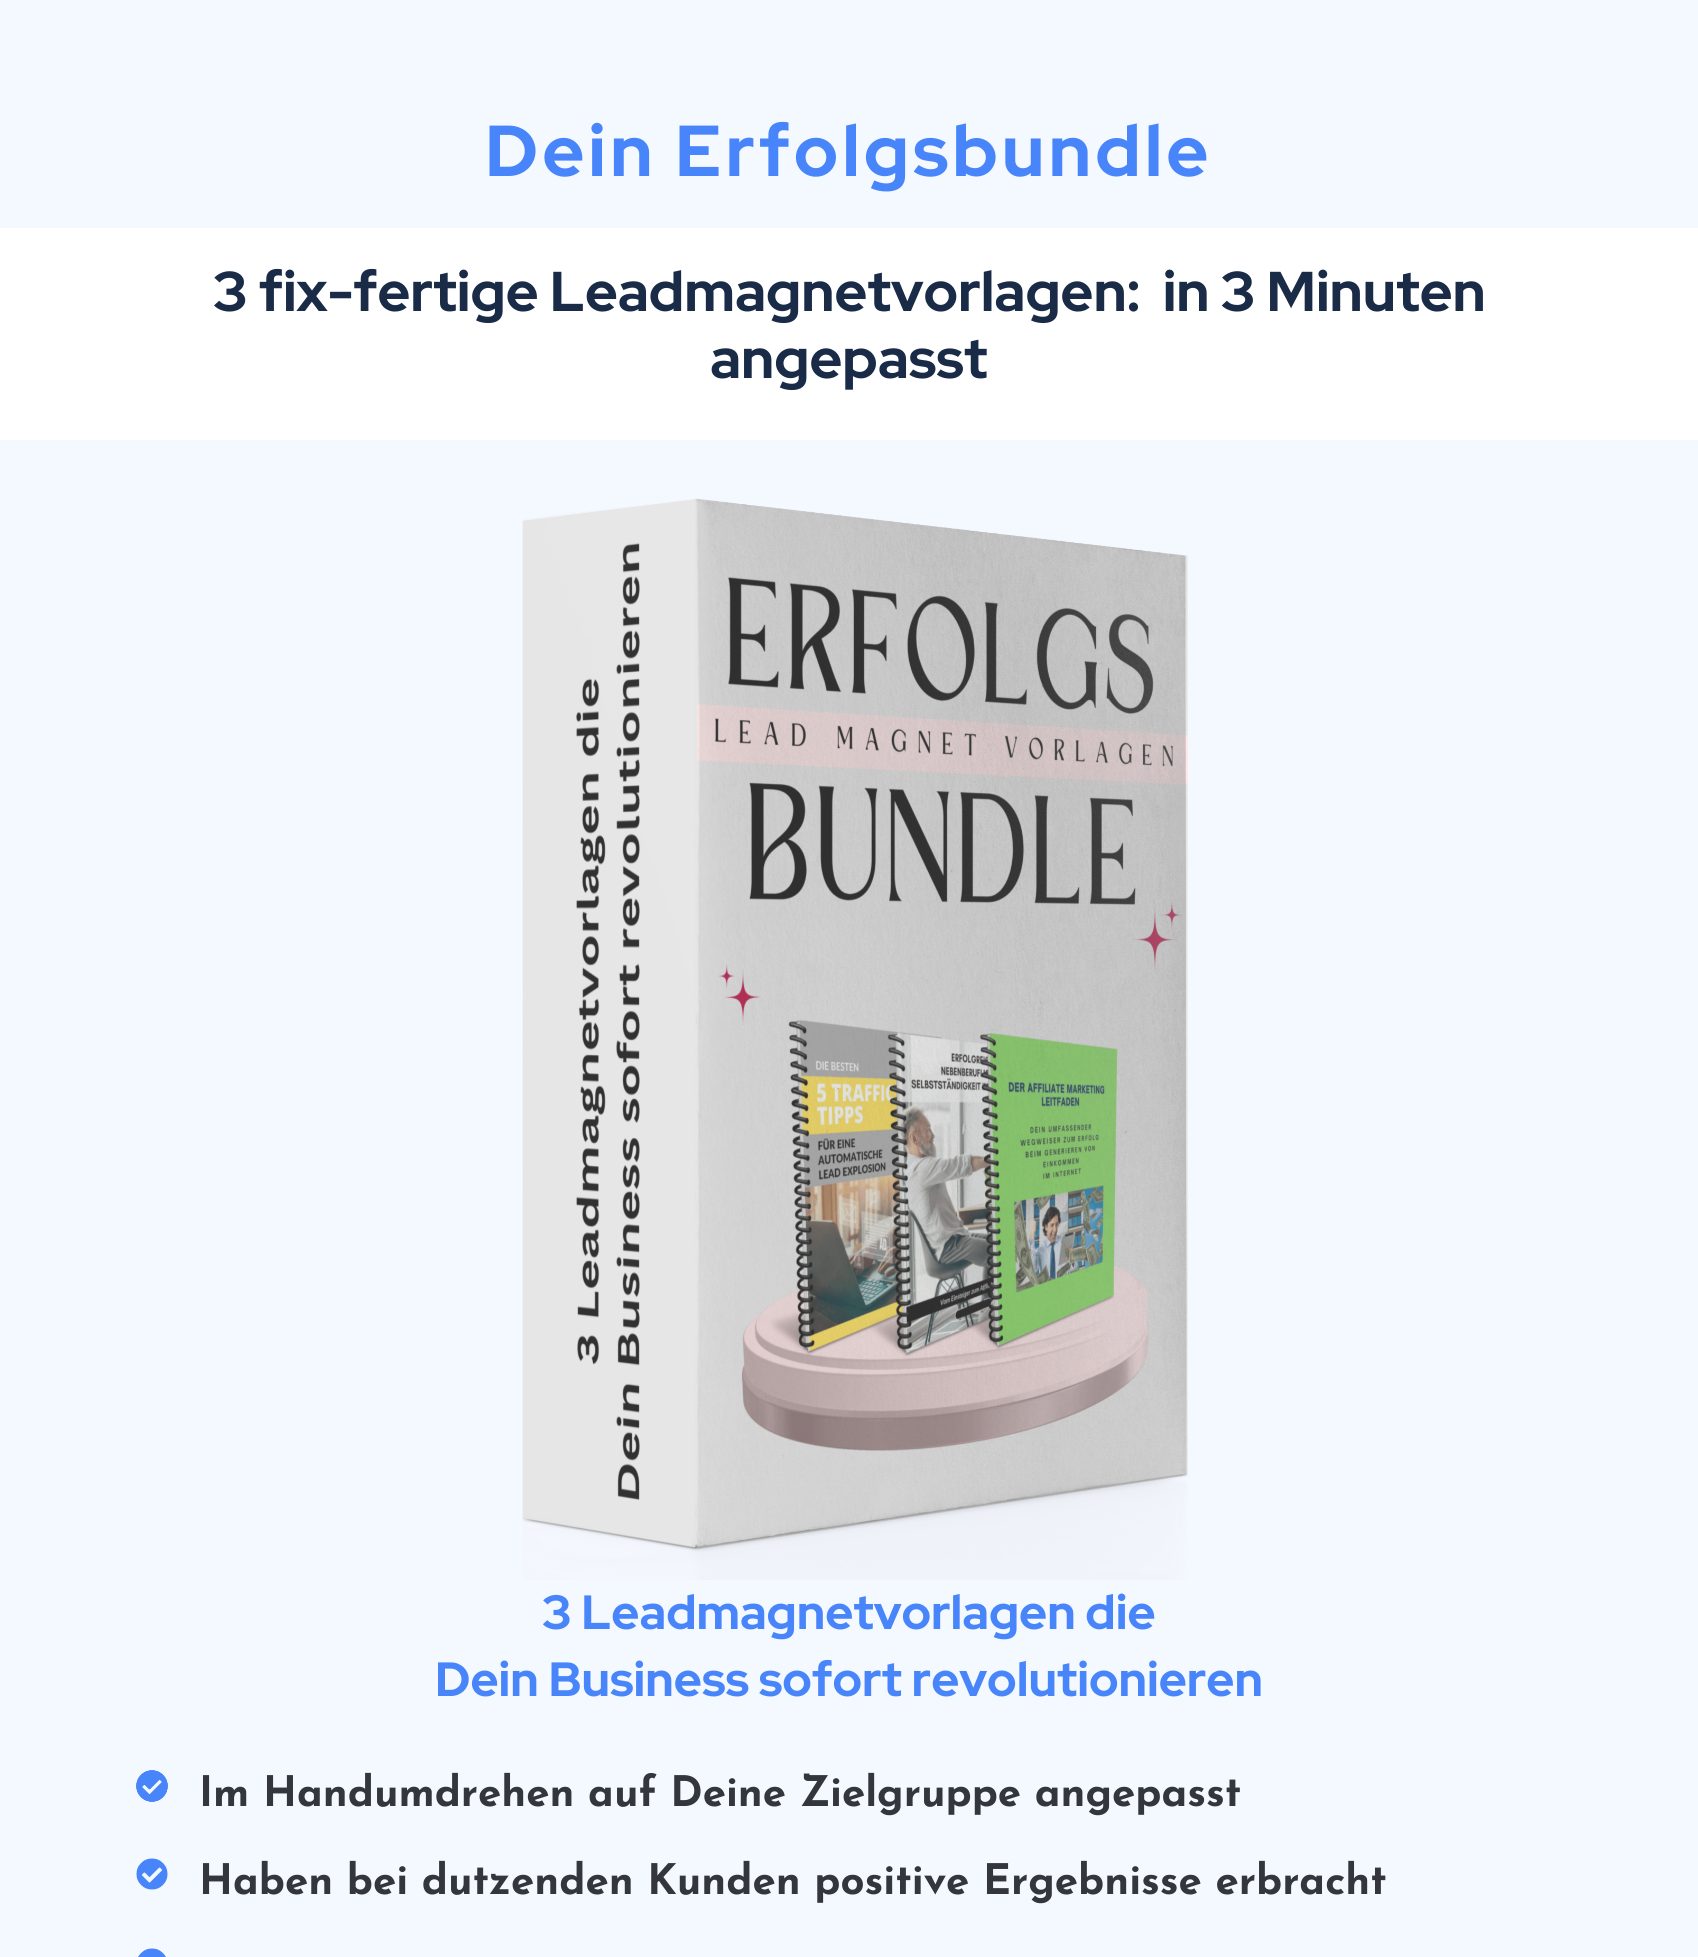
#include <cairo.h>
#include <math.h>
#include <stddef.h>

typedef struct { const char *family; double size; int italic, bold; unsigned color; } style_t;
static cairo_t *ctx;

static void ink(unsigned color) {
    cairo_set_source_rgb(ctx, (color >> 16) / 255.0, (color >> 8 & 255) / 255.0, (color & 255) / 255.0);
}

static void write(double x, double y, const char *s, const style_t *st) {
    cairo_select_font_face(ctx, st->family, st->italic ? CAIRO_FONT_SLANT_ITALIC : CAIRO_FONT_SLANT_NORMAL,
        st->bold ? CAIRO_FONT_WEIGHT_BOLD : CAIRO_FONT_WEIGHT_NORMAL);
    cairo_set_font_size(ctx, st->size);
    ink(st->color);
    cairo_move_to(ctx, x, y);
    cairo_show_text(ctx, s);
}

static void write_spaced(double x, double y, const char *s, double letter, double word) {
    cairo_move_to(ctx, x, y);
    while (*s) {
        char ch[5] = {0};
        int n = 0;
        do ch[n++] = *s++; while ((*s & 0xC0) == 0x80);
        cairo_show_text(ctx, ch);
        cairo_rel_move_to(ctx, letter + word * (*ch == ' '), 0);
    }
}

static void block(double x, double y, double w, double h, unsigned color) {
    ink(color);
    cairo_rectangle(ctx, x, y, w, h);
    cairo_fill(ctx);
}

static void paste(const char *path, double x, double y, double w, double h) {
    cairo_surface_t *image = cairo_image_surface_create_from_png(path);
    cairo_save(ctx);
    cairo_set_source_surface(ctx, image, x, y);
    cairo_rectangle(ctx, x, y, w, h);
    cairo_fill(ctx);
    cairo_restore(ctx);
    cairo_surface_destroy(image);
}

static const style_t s1 = {"Red Hat Display", 56, 0, 1, 0x192b47};
static const style_t s2 = {"Red Hat Display", 48, 0, 1, 0x4885fb};
static const style_t s3 = {"Josefin Sans", 42, 0, 1, 0x33373c};

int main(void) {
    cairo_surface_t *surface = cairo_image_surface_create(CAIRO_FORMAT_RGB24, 1698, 1957);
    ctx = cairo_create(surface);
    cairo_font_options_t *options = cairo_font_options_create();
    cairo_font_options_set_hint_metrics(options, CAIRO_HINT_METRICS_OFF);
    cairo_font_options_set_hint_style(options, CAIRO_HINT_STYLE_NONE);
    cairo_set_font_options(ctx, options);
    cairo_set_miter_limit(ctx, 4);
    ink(0xffffff);
    cairo_paint(ctx);
    block(0, 0, 1698, 228, 0xf4f8ff);
    cairo_select_font_face(ctx, "Red Hat Display", CAIRO_FONT_SLANT_NORMAL, CAIRO_FONT_WEIGHT_BOLD);
    cairo_set_font_size(ctx, 72);
    ink(0x4885fb);
    write_spaced(485, 176, "Dein Erfolgsbundle", 4, 0);
    write(213, 311, "3 fix-fertige Leadmagnetvorlagen:  in 3 Minuten", &s1);
    write(710, 378, "angepasst", &s1);
    block(0, 440, 1698, 1517, 0xf4f8ff);
    paste("pic1.png", 522, 498, 666, 1082);
    write(542, 1629, "3 Leadmagnetvorlagen die", &s2);
    write(435, 1696, "Dein Business sofort revolutionieren", &s2);
    paste("pic2.png", 136, 1770, 32, 32);
    paste("pic3.png", 136, 1770, 32, 32);
    paste("pic4.png", 136, 1770, 32, 32);
    paste("pic5.png", 136, 1770, 32, 32);
    paste("pic6.png", 136, 1770, 32, 32);
    write(199, 1806, "Im Handumdrehen auf Deine Zielgruppe angepasst", &s3);
    paste("pic2.png", 136, 1858, 32, 32);
    write(199, 1894, "Haben bei dutzenden Kunden positive Ergebnisse erbracht", &s3);
    paste("pic7.png", 138, 1948, 28, 9);
    cairo_surface_write_to_png(surface, "screenshot.png");
    cairo_font_options_destroy(options);
    cairo_destroy(ctx);
    cairo_surface_destroy(surface);
    return 0;
}
